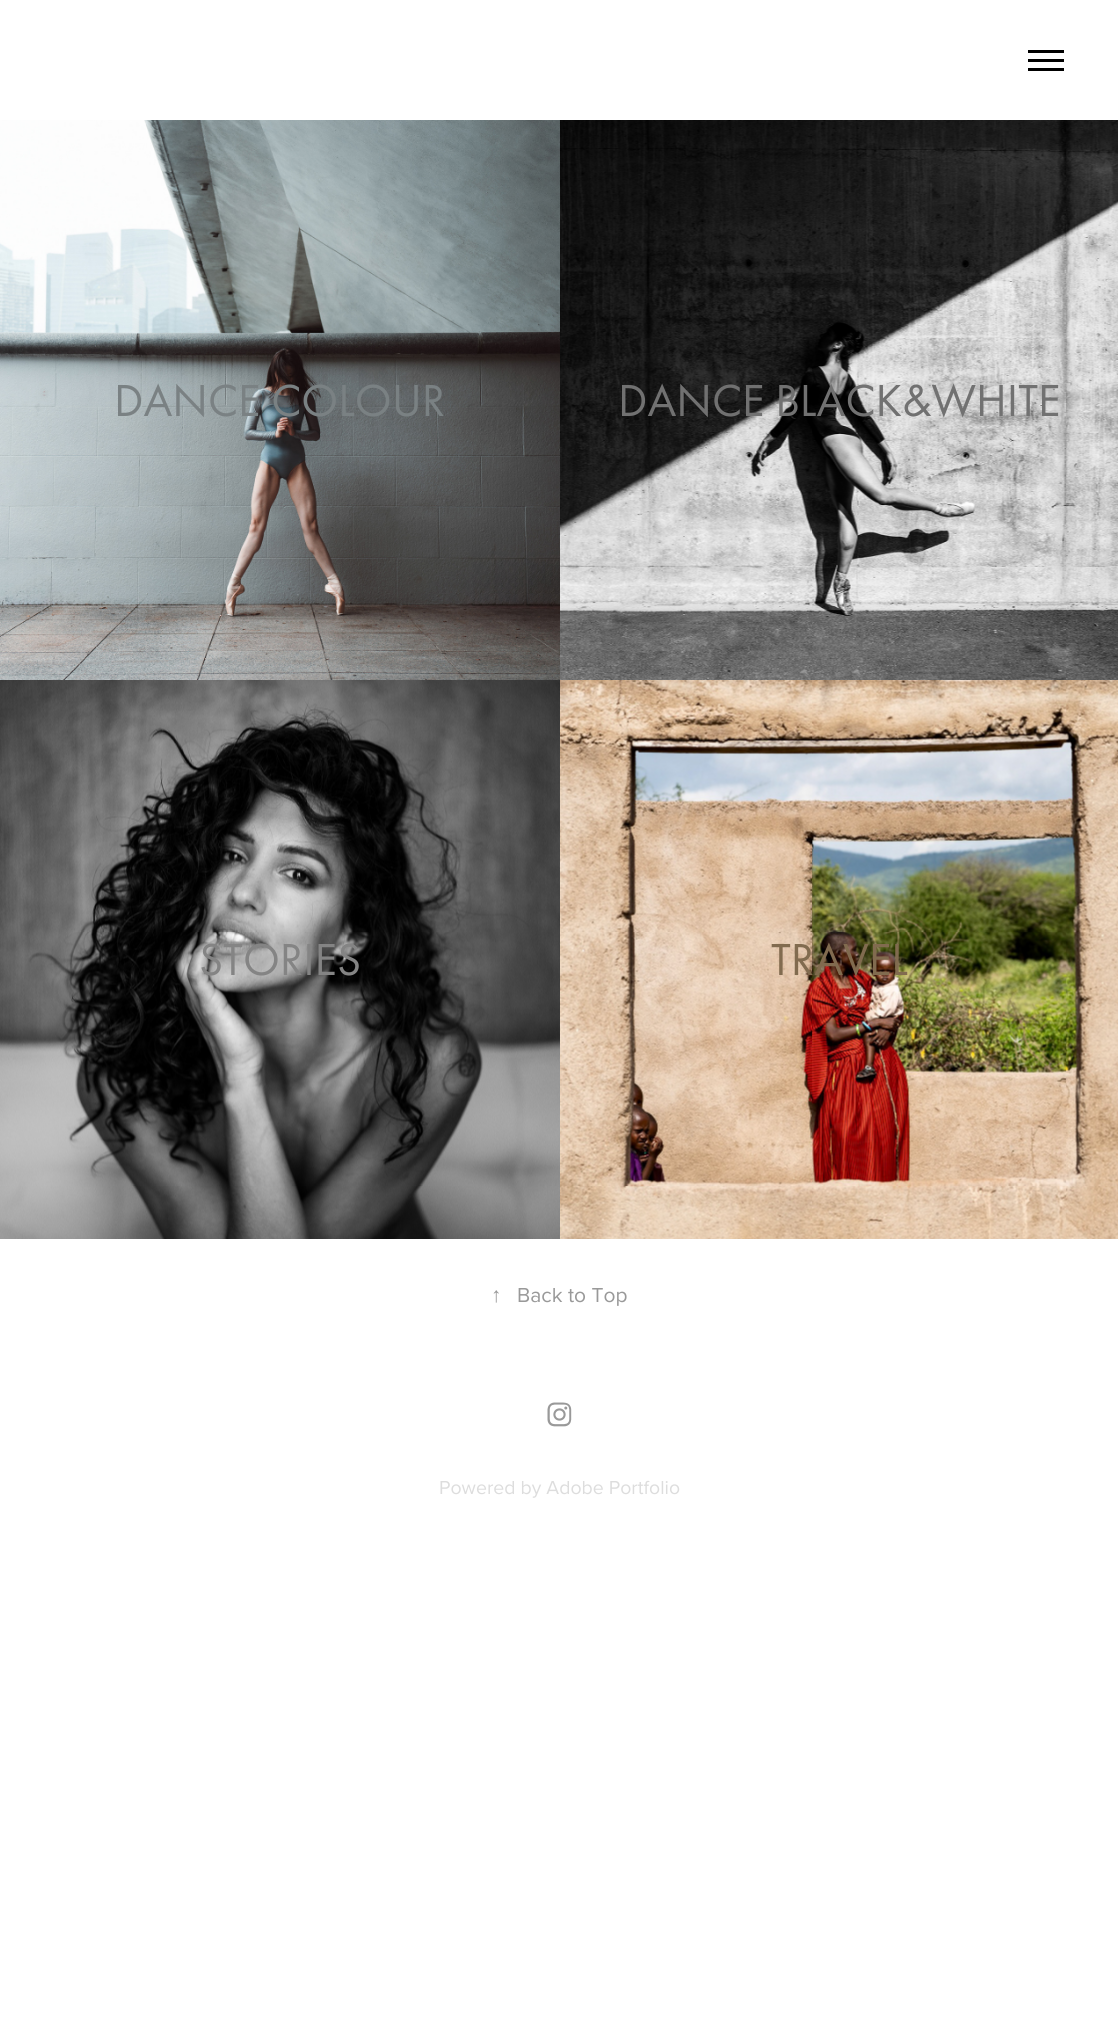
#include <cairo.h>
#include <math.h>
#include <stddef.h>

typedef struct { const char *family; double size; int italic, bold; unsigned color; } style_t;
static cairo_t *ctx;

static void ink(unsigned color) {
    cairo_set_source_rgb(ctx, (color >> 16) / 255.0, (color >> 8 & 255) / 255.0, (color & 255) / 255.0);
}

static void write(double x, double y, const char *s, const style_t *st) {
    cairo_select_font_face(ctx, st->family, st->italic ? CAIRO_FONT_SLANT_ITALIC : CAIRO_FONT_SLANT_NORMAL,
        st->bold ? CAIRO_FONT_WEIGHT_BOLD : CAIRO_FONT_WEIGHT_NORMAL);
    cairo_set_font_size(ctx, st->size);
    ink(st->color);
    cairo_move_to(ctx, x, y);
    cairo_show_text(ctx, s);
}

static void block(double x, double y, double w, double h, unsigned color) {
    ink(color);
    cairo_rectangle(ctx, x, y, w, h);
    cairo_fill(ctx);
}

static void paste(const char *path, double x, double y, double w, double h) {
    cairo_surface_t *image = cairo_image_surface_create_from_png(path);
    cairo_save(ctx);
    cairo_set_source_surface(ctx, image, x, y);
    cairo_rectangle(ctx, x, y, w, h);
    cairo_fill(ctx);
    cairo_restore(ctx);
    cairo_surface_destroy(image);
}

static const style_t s1 = {"Futura PT", 46.5, 0, 0, 0x7a8183};
static const style_t s2 = {"Futura PT", 46.5, 0, 0, 0x717171};
static const style_t s3 = {"Futura PT", 46.5, 0, 0, 0x848484};
static const style_t s4 = {"Futura PT", 46.5, 0, 0, 0x816b4f};
static const style_t s5 = {"Liberation Serif", 21, 0, 0, 0x999999};
static const style_t s6 = {"Proxima Nova", 21, 0, 0, 0x999999};
static const style_t s7 = {"Proxima Nova", 19.5, 0, 0, 0xdddddd};

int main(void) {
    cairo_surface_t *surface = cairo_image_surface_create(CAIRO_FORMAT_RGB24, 1118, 2044);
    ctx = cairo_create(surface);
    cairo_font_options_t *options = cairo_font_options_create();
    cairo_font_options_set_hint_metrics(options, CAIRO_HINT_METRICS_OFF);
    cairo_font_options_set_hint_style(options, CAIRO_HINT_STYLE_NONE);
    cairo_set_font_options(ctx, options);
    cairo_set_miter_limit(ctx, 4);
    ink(0xffffff);
    cairo_paint(ctx);
    block(1028, 50, 36, 3, 0x000000);
    block(1028, 59, 36, 3, 0x000000);
    block(1028, 68, 36, 3, 0x000000);
    paste("pic1.png", 0, 120, 560, 560);
    write(114, 416, "DANCE COLOUR", &s1);
    paste("pic2.png", 560, 120, 558, 560);
    write(618, 416, "DANCE BLACK&WHITE", &s2);
    paste("pic3.png", 0, 680, 560, 559);
    write(199, 975, "STORIES", &s3);
    paste("pic4.png", 560, 680, 558, 559);
    write(771, 975, "TRAVEL", &s4);
    write(491, 1302, "↑", &s5);
    write(517, 1302, "Back to Top", &s6);
    paste("pic5.png", 547, 1402, 25, 25);
    write(439, 1494, "Powered by Adobe Portfolio", &s7);
    cairo_surface_write_to_png(surface, "screenshot.png");
    cairo_font_options_destroy(options);
    cairo_destroy(ctx);
    cairo_surface_destroy(surface);
    return 0;
}
